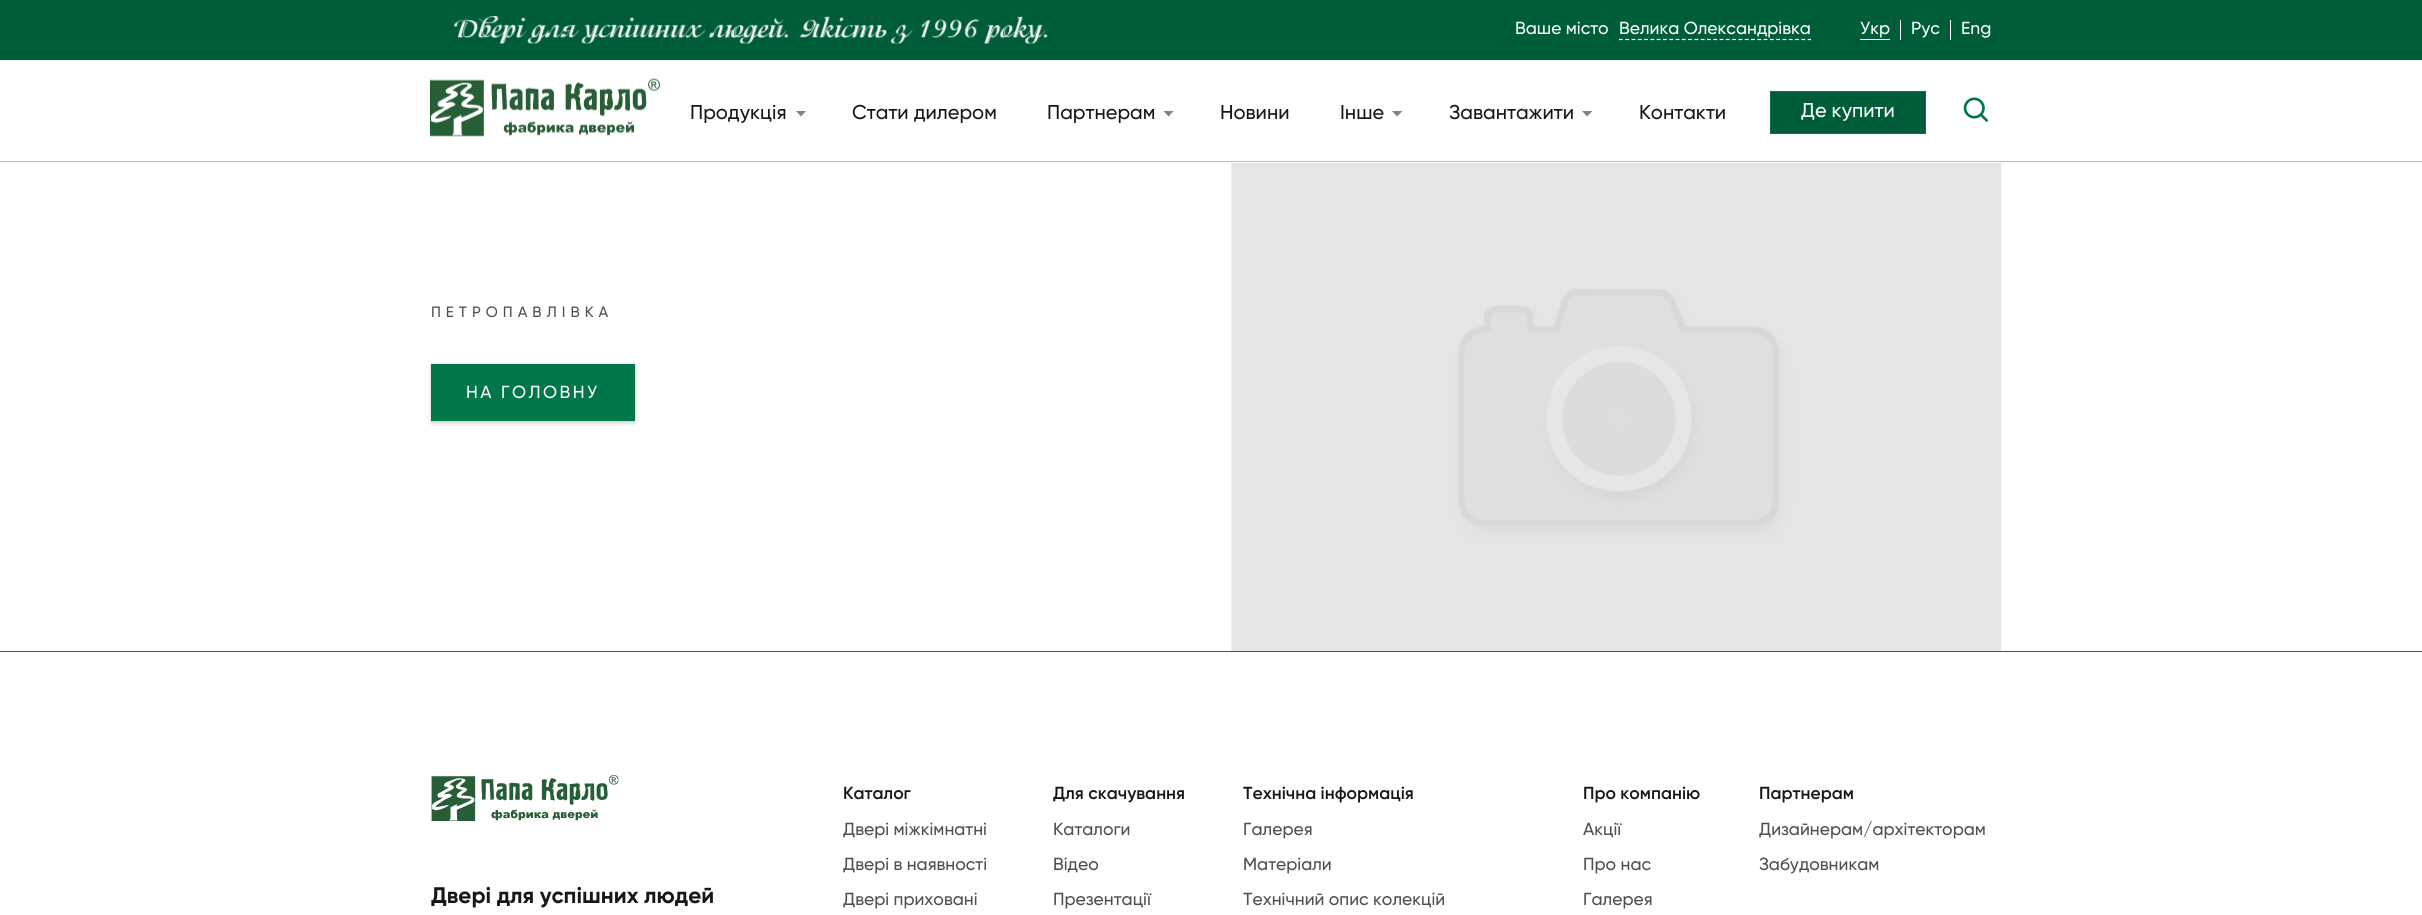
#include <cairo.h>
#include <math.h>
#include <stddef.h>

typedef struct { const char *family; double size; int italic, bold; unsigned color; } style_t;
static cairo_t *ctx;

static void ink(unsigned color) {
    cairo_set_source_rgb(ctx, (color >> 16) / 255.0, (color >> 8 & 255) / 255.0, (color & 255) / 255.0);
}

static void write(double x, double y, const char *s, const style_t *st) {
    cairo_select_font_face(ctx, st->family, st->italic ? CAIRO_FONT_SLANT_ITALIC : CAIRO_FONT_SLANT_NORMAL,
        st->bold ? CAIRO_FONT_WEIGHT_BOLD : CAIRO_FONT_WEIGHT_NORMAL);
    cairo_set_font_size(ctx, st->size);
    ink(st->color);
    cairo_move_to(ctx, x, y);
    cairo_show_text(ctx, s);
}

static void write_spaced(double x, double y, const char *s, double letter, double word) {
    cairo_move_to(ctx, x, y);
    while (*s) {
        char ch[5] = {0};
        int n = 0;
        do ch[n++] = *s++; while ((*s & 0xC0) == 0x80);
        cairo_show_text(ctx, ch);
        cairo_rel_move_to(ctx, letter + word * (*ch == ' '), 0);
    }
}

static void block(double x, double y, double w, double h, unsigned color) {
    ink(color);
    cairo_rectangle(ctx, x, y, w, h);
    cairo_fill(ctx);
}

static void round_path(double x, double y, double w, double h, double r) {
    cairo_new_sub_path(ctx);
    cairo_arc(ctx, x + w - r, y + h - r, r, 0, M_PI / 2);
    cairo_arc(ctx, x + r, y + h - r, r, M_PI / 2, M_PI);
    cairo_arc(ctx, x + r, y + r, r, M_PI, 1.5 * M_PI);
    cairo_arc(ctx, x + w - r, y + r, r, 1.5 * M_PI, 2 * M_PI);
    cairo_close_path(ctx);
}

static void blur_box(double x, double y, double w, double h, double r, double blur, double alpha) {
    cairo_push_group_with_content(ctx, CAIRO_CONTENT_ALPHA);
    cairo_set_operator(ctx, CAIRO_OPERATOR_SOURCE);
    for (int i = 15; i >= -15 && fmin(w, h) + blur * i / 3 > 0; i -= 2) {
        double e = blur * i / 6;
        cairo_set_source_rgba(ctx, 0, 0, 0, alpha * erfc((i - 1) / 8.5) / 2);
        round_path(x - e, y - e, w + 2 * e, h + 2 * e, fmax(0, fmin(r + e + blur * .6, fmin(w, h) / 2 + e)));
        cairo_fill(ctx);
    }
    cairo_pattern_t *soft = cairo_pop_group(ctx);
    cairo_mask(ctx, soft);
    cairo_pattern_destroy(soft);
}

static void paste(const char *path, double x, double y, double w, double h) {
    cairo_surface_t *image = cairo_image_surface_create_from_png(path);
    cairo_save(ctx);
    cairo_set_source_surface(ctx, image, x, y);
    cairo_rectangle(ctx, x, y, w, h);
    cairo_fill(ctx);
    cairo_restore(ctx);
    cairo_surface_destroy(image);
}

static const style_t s1 = {"Gilroy Medium", 17.5, 0, 0, 0xffffff};
static const style_t s2 = {"Gilroy Medium", 20, 0, 0, 0x171717};
static const style_t s3 = {"Gilroy Medium", 20, 0, 0, 0xffffff};
static const style_t s4 = {"Gilroy", 22.5, 0, 1, 0x171717};
static const style_t s5 = {"Gilroy SemiBold", 17.5, 0, 0, 0x171717};
static const style_t s6 = {"Gilroy Medium", 17.5, 0, 0, 0x4f4f4f};

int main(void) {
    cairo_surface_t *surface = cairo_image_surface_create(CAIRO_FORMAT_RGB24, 2422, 915);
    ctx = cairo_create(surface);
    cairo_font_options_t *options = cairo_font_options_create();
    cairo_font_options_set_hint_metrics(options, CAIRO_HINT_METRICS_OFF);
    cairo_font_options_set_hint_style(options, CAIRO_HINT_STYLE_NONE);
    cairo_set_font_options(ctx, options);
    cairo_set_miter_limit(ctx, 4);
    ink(0xffffff);
    cairo_paint(ctx);
    block(0, 0, 2422, 60, 0x005d39);
    paste("pic1.png", 454, 16, 594, 28);
    write(1515, 34, "Ваше місто", &s1);
    cairo_new_path(ctx);
    cairo_move_to(ctx, 1619, 39.5);
    cairo_line_to(ctx, 1811, 39.5);
    cairo_set_line_width(ctx, 1.2);
    cairo_set_dash(ctx, (double[]){3.75, 2.54}, 2, 0);
    cairo_stroke(ctx);
    write(1619, 34, "Велика Олександрівка", &s1);
    block(1900, 20, 1, 20, 0xffffff);
    write(1860, 34, "Укр", &s1);
    block(1860, 39, 30, 1, 0xffffff);
    block(1950, 20, 1, 20, 0xffffff);
    write(1911, 34, "Рус", &s1);
    write(1961, 34, "Eng", &s1);
    block(0, 161, 2422, 1, 0xbdbdbd);
    paste("pic2.png", 430, 78, 230, 59);
    write(690, 119, "Продукція", &s2);
    ink(0x828282);
    cairo_new_path(ctx);
    cairo_move_to(ctx, 801, 116.5);
    cairo_line_to(ctx, 796, 111);
    cairo_line_to(ctx, 806, 111);
    cairo_close_path(ctx);
    cairo_fill(ctx);
    write(852, 119, "Стати дилером", &s2);
    write(1047, 119, "Партнерам", &s2);
    ink(0x828282);
    cairo_new_path(ctx);
    cairo_move_to(ctx, 1168.5, 116.5);
    cairo_line_to(ctx, 1163.5, 111);
    cairo_line_to(ctx, 1173.5, 111);
    cairo_close_path(ctx);
    cairo_fill(ctx);
    write(1220, 119, "Новини", &s2);
    write(1340, 119, "Інше", &s2);
    ink(0x828282);
    cairo_new_path(ctx);
    cairo_move_to(ctx, 1397, 116.5);
    cairo_line_to(ctx, 1392, 111);
    cairo_line_to(ctx, 1402.5, 111);
    cairo_close_path(ctx);
    cairo_fill(ctx);
    write(1449, 119, "Завантажити", &s2);
    ink(0x828282);
    cairo_new_path(ctx);
    cairo_move_to(ctx, 1587, 116.5);
    cairo_line_to(ctx, 1582, 111);
    cairo_line_to(ctx, 1592.5, 111);
    cairo_close_path(ctx);
    cairo_fill(ctx);
    write(1639, 119, "Контакти", &s2);
    ink(0x005d39);
    cairo_rectangle(ctx, 1770.5, 91.5, 155, 42);
    cairo_fill_preserve(ctx);
    ink(0x007749);
    cairo_set_line_width(ctx, 1);
    cairo_set_dash(ctx, NULL, 0, 0);
    cairo_stroke(ctx);
    write(1801, 117, "Де купити", &s3);
    paste("pic3.png", 1963, 97, 26, 25);
    cairo_set_font_size(ctx, 15);
    ink(0x4f4f4f);
    write_spaced(431, 317, "ПЕТРОПАВЛІВКА", 5, 0);
    ink(0x000000);
    blur_box(431, 365, 204, 58, 0, 2, 0.2);
    block(431, 364, 204, 57, 0x007749);
    cairo_set_font_size(ctx, 17.5);
    ink(0xffffff);
    write_spaced(466, 398, "НА ГОЛОВНУ", 2.5, 0);
    paste("pic4.png", 1231, 163, 771, 488);
    block(0, 651, 2422, 1, 0x007749);
    paste("pic5.png", 431, 775, 188, 46);
    write(431, 903, "Двері для успішних людей", &s4);
    write(843, 799, "Каталог", &s5);
    write(843, 835, "Двері міжкімнатні", &s6);
    write(843, 870, "Двері в наявності", &s6);
    write(843, 905, "Двері приховані", &s6);
    write(1053, 799, "Для скачування", &s5);
    write(1053, 835, "Каталоги", &s6);
    write(1053, 870, "Відео", &s6);
    write(1053, 905, "Презентації", &s6);
    write(1243, 799, "Технічна інформація", &s5);
    write(1243, 835, "Галерея", &s6);
    write(1243, 870, "Матеріали", &s6);
    write(1243, 905, "Технічний опис колекцій", &s6);
    write(1583, 799, "Про компанію", &s5);
    write(1583, 835, "Акції", &s6);
    write(1583, 870, "Про нас", &s6);
    write(1583, 905, "Галерея", &s6);
    write(1759, 799, "Партнерам", &s5);
    write(1759, 835, "Дизайнерам/архітекторам", &s6);
    write(1759, 870, "Забудовникам", &s6);
    cairo_surface_write_to_png(surface, "screenshot.png");
    cairo_font_options_destroy(options);
    cairo_destroy(ctx);
    cairo_surface_destroy(surface);
    return 0;
}
